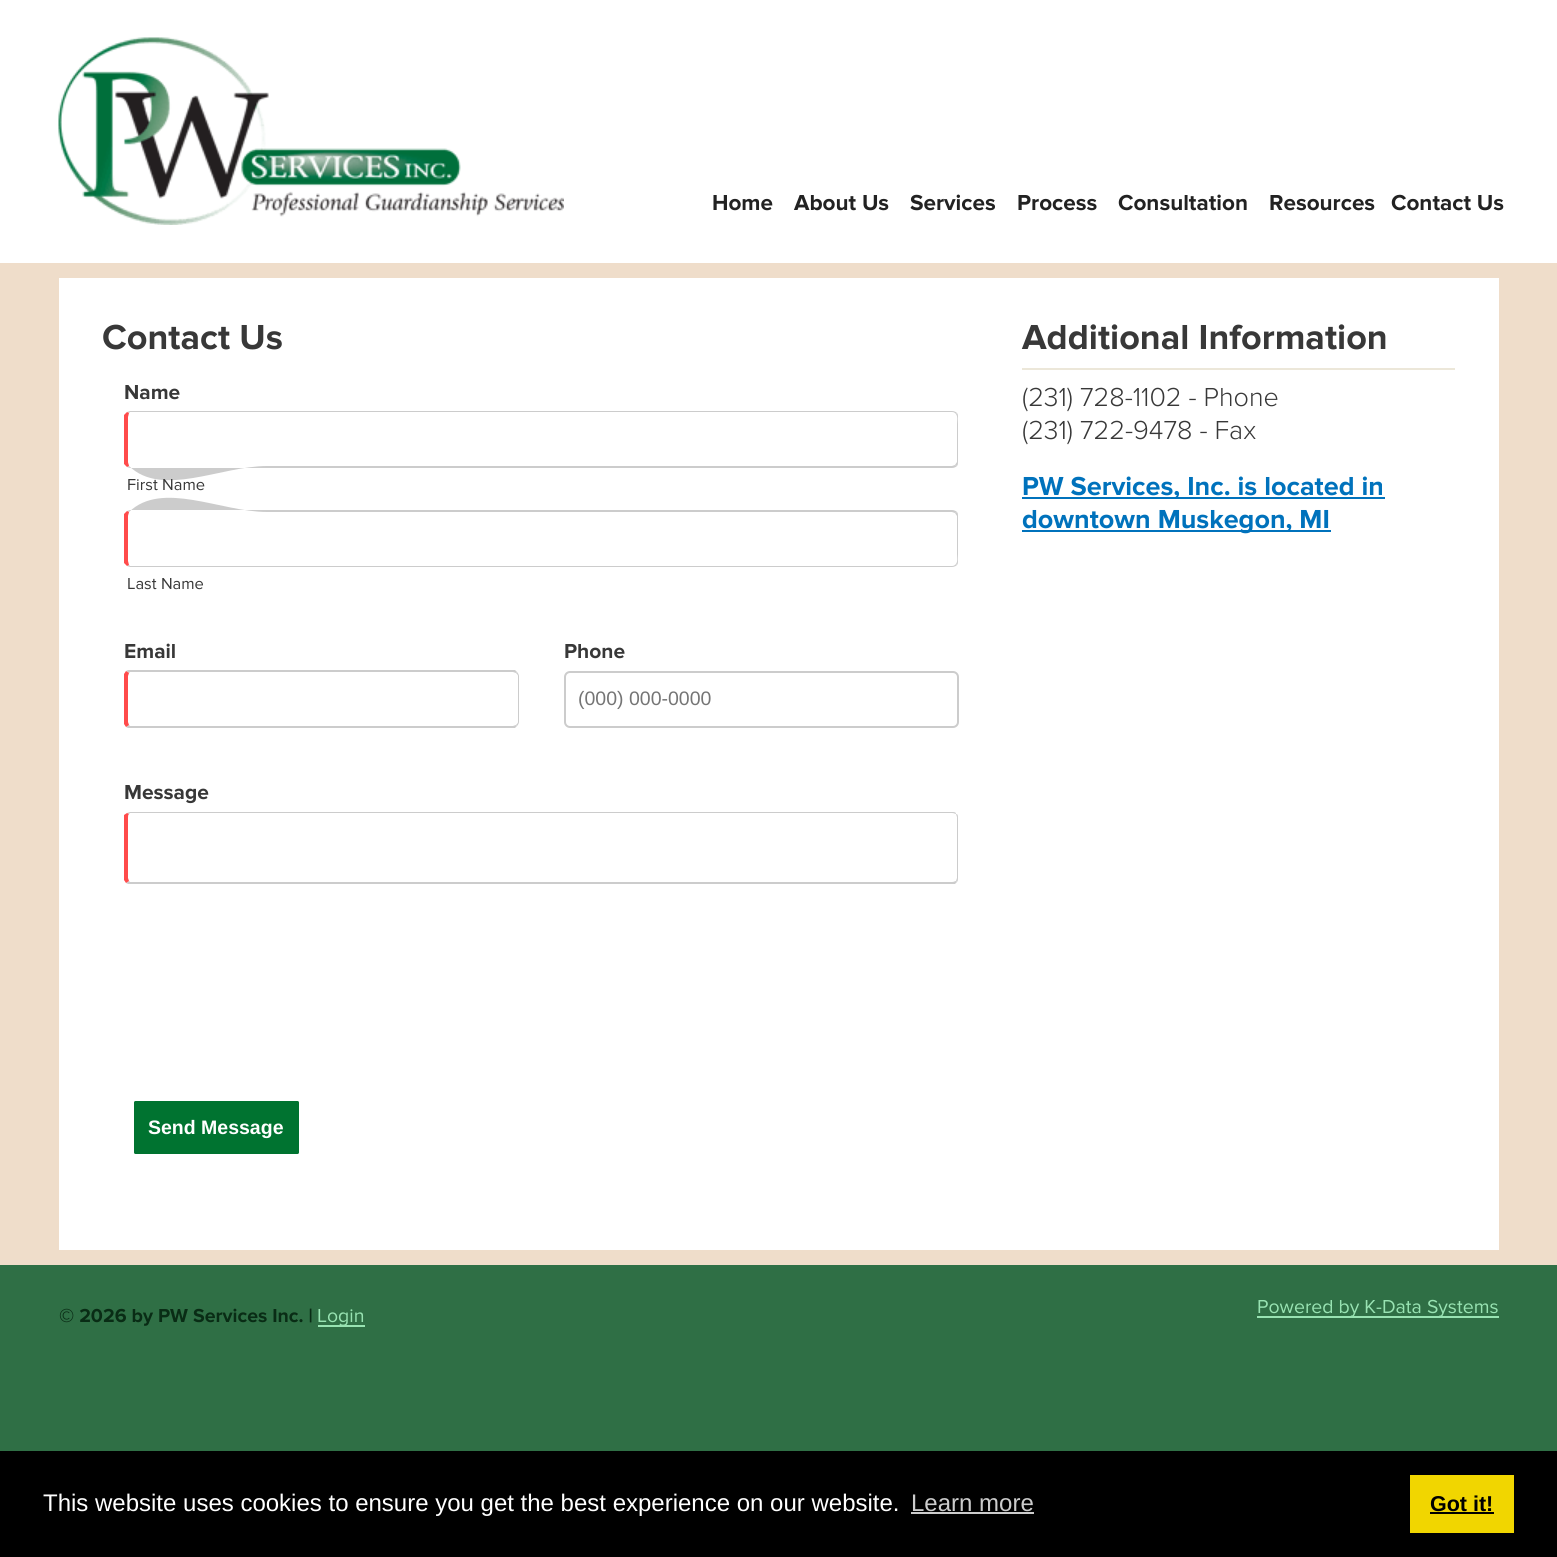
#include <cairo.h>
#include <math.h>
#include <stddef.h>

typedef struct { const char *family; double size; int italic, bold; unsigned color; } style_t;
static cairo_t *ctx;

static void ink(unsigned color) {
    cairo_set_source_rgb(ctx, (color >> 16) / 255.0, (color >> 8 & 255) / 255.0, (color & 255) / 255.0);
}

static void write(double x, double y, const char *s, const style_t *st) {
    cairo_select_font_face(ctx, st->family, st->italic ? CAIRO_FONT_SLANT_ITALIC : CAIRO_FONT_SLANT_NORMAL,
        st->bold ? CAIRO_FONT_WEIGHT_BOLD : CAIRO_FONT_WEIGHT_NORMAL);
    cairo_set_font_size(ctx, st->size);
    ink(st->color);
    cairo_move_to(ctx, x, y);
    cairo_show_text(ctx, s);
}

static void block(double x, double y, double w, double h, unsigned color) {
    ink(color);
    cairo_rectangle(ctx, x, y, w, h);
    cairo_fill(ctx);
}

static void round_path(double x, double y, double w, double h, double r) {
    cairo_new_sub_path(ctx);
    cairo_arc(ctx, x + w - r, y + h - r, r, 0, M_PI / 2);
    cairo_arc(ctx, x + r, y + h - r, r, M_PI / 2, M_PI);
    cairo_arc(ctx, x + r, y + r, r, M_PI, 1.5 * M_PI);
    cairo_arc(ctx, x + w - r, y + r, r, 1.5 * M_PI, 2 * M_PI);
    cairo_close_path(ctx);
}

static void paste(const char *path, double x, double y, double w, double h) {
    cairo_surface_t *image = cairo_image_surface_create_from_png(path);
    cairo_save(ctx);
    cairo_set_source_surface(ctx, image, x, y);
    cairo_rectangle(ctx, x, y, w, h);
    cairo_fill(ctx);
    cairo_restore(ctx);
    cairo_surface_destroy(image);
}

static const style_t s1 = {"Proxima Nova", 22.5, 0, 1, 0x222222};
static const style_t s2 = {"Proxima Nova", 36, 0, 1, 0x383838};
static const style_t s3 = {"Proxima Nova", 21, 0, 1, 0x383838};
static const style_t s4 = {"Proxima Nova", 16.5, 0, 0, 0x383838};
static const style_t s5 = {"Liberation Sans", 19.5, 0, 0, 0x757575};
static const style_t s6 = {"Liberation Sans", 19.5, 0, 1, 0xffffff};
static const style_t s7 = {"Proxima Nova Light", 27, 0, 0, 0x383838};
static const style_t s8 = {"Proxima Nova", 27, 0, 1, 0x0072bc};
static const style_t s9 = {"Proxima Nova", 19.5, 0, 1, 0x092c15};
static const style_t s10 = {"Proxima Nova", 19.5, 0, 0, 0x98e3b2};
static const style_t s11 = {"Liberation Sans", 24, 0, 0, 0xffffff};
static const style_t s12 = {"Liberation Sans", 24, 0, 0, 0xcccccc};
static const style_t s13 = {"Liberation Sans", 21.5, 0, 1, 0x000000};

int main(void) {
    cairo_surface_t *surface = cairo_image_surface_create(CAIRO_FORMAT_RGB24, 1557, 1557);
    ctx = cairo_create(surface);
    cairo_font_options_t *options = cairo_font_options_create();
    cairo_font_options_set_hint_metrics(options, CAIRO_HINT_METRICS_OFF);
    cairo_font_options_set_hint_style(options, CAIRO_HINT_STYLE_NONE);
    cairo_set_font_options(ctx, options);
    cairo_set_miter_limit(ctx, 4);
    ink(0x2f6f45);
    cairo_paint(ctx);
    block(0, 0, 1557, 263, 0xffffff);
    paste("pic1.png", 58, 37, 506, 188);
    write(712, 210, "Home", &s1);
    write(794, 210, "About Us", &s1);
    write(910, 210, "Services", &s1);
    write(1017, 210, "Process", &s1);
    write(1118, 210, "Consultation", &s1);
    write(1269, 210, "Resources", &s1);
    write(1391, 210, "Contact Us", &s1);
    block(0, 263, 1557, 1002, 0xefddca);
    block(59, 278, 1440, 972, 0xffffff);
    write(102, 349, "Contact Us", &s2);
    write(124, 399, "Name", &s3);
    ink(0xcccccc);
    cairo_new_path(ctx);
    cairo_move_to(ctx, 130, 411);
    cairo_line_to(ctx, 127, 412);
    cairo_line_to(ctx, 129, 413);
    cairo_line_to(ctx, 130, 412);
    cairo_line_to(ctx, 952, 412);
    cairo_curve_to(ctx, 954, 412, 955, 413, 956, 414);
    cairo_line_to(ctx, 957, 413);
    cairo_curve_to(ctx, 956, 412, 954, 411, 952, 411);
    cairo_close_path(ctx);
    cairo_fill(ctx);
    cairo_new_path(ctx);
    cairo_move_to(ctx, 957, 413);
    cairo_curve_to(ctx, 958, 414, 958, 416, 958, 417);
    cairo_line_to(ctx, 958, 462);
    cairo_curve_to(ctx, 958, 463, 958, 465, 957, 466);
    cairo_line_to(ctx, 955, 465);
    cairo_line_to(ctx, 957, 462);
    cairo_line_to(ctx, 957, 424);
    cairo_curve_to(ctx, 957, 421, 958, 417, 956, 414);
    cairo_close_path(ctx);
    cairo_fill(ctx);
    cairo_new_path(ctx);
    cairo_move_to(ctx, 130, 468);
    cairo_line_to(ctx, 952, 468);
    cairo_curve_to(ctx, 954, 468, 956, 467, 957, 466);
    cairo_line_to(ctx, 955, 465);
    cairo_line_to(ctx, 952, 466);
    cairo_line_to(ctx, 267, 466);
    cairo_curve_to(ctx, 221, 466, 162, 498, 129, 466);
    cairo_line_to(ctx, 127, 467);
    cairo_close_path(ctx);
    cairo_fill(ctx);
    ink(0xff4b4b);
    cairo_new_path(ctx);
    cairo_move_to(ctx, 124, 415);
    cairo_line_to(ctx, 127, 412);
    cairo_line_to(ctx, 129, 413);
    cairo_line_to(ctx, 128, 417);
    cairo_line_to(ctx, 128, 462);
    cairo_curve_to(ctx, 128, 463, 129, 465, 129, 466);
    cairo_line_to(ctx, 127, 467);
    cairo_line_to(ctx, 124, 464);
    cairo_close_path(ctx);
    cairo_fill(ctx);
    write(127, 490, "First Name", &s4);
    ink(0xcccccc);
    cairo_new_path(ctx);
    cairo_move_to(ctx, 130, 510);
    cairo_line_to(ctx, 127, 511);
    cairo_line_to(ctx, 129, 512);
    cairo_curve_to(ctx, 162, 480, 221, 512, 267, 512);
    cairo_line_to(ctx, 952, 512);
    cairo_line_to(ctx, 955, 513);
    cairo_line_to(ctx, 957, 512);
    cairo_curve_to(ctx, 956, 511, 954, 510, 952, 510);
    cairo_close_path(ctx);
    cairo_fill(ctx);
    cairo_new_path(ctx);
    cairo_move_to(ctx, 957, 512);
    cairo_curve_to(ctx, 958, 513, 958, 515, 958, 516);
    cairo_line_to(ctx, 958, 561);
    cairo_curve_to(ctx, 958, 562, 958, 564, 957, 565);
    cairo_line_to(ctx, 956, 564);
    cairo_curve_to(ctx, 958, 561, 957, 557, 957, 554);
    cairo_line_to(ctx, 957, 516);
    cairo_line_to(ctx, 955, 513);
    cairo_close_path(ctx);
    cairo_fill(ctx);
    cairo_new_path(ctx);
    cairo_move_to(ctx, 130, 567);
    cairo_line_to(ctx, 952, 567);
    cairo_curve_to(ctx, 954, 567, 956, 566, 957, 565);
    cairo_line_to(ctx, 956, 564);
    cairo_curve_to(ctx, 955, 565, 954, 566, 952, 566);
    cairo_line_to(ctx, 130, 566);
    cairo_line_to(ctx, 129, 565);
    cairo_line_to(ctx, 127, 566);
    cairo_close_path(ctx);
    cairo_fill(ctx);
    ink(0xff4b4b);
    cairo_new_path(ctx);
    cairo_move_to(ctx, 124, 514);
    cairo_line_to(ctx, 127, 511);
    cairo_line_to(ctx, 129, 512);
    cairo_curve_to(ctx, 129, 513, 128, 515, 128, 516);
    cairo_line_to(ctx, 128, 561);
    cairo_line_to(ctx, 129, 565);
    cairo_line_to(ctx, 127, 566);
    cairo_line_to(ctx, 124, 563);
    cairo_close_path(ctx);
    cairo_fill(ctx);
    write(127, 589, "Last Name", &s4);
    write(124, 658, "Email", &s3);
    ink(0xcccccc);
    cairo_new_path(ctx);
    cairo_move_to(ctx, 130, 672);
    cairo_line_to(ctx, 129, 673);
    cairo_line_to(ctx, 126, 671);
    cairo_line_to(ctx, 128, 670);
    cairo_line_to(ctx, 515, 670);
    cairo_line_to(ctx, 517, 672);
    cairo_line_to(ctx, 516, 673);
    cairo_line_to(ctx, 513, 672);
    cairo_close_path(ctx);
    cairo_fill(ctx);
    cairo_new_path(ctx);
    cairo_move_to(ctx, 519, 722);
    cairo_line_to(ctx, 519, 676);
    cairo_curve_to(ctx, 519, 675, 518, 673, 517, 672);
    cairo_line_to(ctx, 516, 673);
    cairo_curve_to(ctx, 517, 674, 518, 675, 518, 676);
    cairo_line_to(ctx, 518, 722);
    cairo_curve_to(ctx, 518, 723, 517, 724, 516, 725);
    cairo_line_to(ctx, 517, 726);
    cairo_curve_to(ctx, 518, 725, 519, 723, 519, 722);
    cairo_close_path(ctx);
    cairo_fill(ctx);
    cairo_new_path(ctx);
    cairo_move_to(ctx, 128, 728);
    cairo_line_to(ctx, 126, 727);
    cairo_line_to(ctx, 129, 725);
    cairo_line_to(ctx, 130, 726);
    cairo_line_to(ctx, 513, 726);
    cairo_line_to(ctx, 516, 725);
    cairo_line_to(ctx, 517, 726);
    cairo_line_to(ctx, 515, 728);
    cairo_close_path(ctx);
    cairo_fill(ctx);
    ink(0xff4b4b);
    cairo_new_path(ctx);
    cairo_move_to(ctx, 124, 674);
    cairo_line_to(ctx, 126, 671);
    cairo_line_to(ctx, 129, 673);
    cairo_line_to(ctx, 128, 676);
    cairo_line_to(ctx, 128, 722);
    cairo_line_to(ctx, 129, 725);
    cairo_line_to(ctx, 126, 727);
    cairo_line_to(ctx, 124, 724);
    cairo_close_path(ctx);
    cairo_fill(ctx);
    write(564, 658, "Phone", &s3);
    round_path(565, 672, 393, 55, 5);
    ink(0xcccccc);
    cairo_stroke(ctx);
    write(578, 705, "(000) 000-0000", &s5);
    write(124, 799, "Message", &s3);
    ink(0xcccccc);
    cairo_new_path(ctx);
    cairo_move_to(ctx, 130, 812);
    cairo_line_to(ctx, 127, 813);
    cairo_line_to(ctx, 129, 814);
    cairo_line_to(ctx, 130, 813);
    cairo_line_to(ctx, 952, 813);
    cairo_curve_to(ctx, 954, 813, 955, 814, 956, 814);
    cairo_curve_to(ctx, 956, 812, 954, 812, 952, 812);
    cairo_close_path(ctx);
    cairo_fill(ctx);
    cairo_new_path(ctx);
    cairo_move_to(ctx, 956, 814);
    cairo_curve_to(ctx, 958, 814, 958, 816, 958, 818);
    cairo_line_to(ctx, 958, 878);
    cairo_curve_to(ctx, 958, 879, 958, 881, 957, 882);
    cairo_line_to(ctx, 956, 881);
    cairo_line_to(ctx, 957, 878);
    cairo_line_to(ctx, 957, 817);
    cairo_close_path(ctx);
    cairo_fill(ctx);
    cairo_new_path(ctx);
    cairo_move_to(ctx, 128, 884);
    cairo_line_to(ctx, 126, 883);
    cairo_line_to(ctx, 129, 881);
    cairo_line_to(ctx, 130, 882);
    cairo_line_to(ctx, 952, 882);
    cairo_curve_to(ctx, 954, 882, 955, 881, 956, 881);
    cairo_line_to(ctx, 957, 882);
    cairo_line_to(ctx, 955, 884);
    cairo_close_path(ctx);
    cairo_fill(ctx);
    ink(0xff4b4b);
    cairo_new_path(ctx);
    cairo_move_to(ctx, 124, 815);
    cairo_line_to(ctx, 127, 813);
    cairo_line_to(ctx, 129, 814);
    cairo_curve_to(ctx, 128, 815, 128, 816, 128, 818);
    cairo_line_to(ctx, 128, 878);
    cairo_line_to(ctx, 129, 881);
    cairo_line_to(ctx, 126, 883);
    cairo_line_to(ctx, 124, 880);
    cairo_close_path(ctx);
    cairo_fill(ctx);
    ink(0x007330);
    round_path(134, 1101, 165, 53, 1.5);
    cairo_fill(ctx);
    write(148, 1134, "Send Message", &s6);
    block(1022, 368, 433, 2, 0xece7d9);
    write(1022, 349, "Additional Information", &s2);
    write(1022, 406, "(231) 728-1102 - Phone", &s7);
    write(1022, 439, "(231) 722-9478 - Fax", &s7);
    block(1022, 497, 363, 2, 0x0072bc);
    write(1022, 495, "PW Services, Inc. is located in", &s8);
    block(1022, 530, 309, 2, 0x0072bc);
    write(1022, 528, "downtown Muskegon, MI", &s8);
    write(59, 1322, "© 2026 by PW Services Inc. |", &s9);
    block(318, 1325, 47, 2, 0x98e3b2);
    write(317, 1322, "Login", &s10);
    block(1257, 1316, 242, 2, 0x98e3b2);
    write(1257, 1313, "Powered by K-Data Systems", &s10);
    block(0, 1451, 1557, 106, 0x000000);
    write(43, 1511, "This website uses cookies to ensure you get the best experience on our website.", &s11);
    write(911, 1511, "Learn more", &s12);
    block(911, 1512, 123, 2, 0xcccccc);
    block(1410, 1475, 104, 58, 0xf1d600);
    write(1430, 1511, "Got it!", &s13);
    block(1430, 1512, 64, 2, 0x000000);
    cairo_surface_write_to_png(surface, "screenshot.png");
    cairo_font_options_destroy(options);
    cairo_destroy(ctx);
    cairo_surface_destroy(surface);
    return 0;
}
